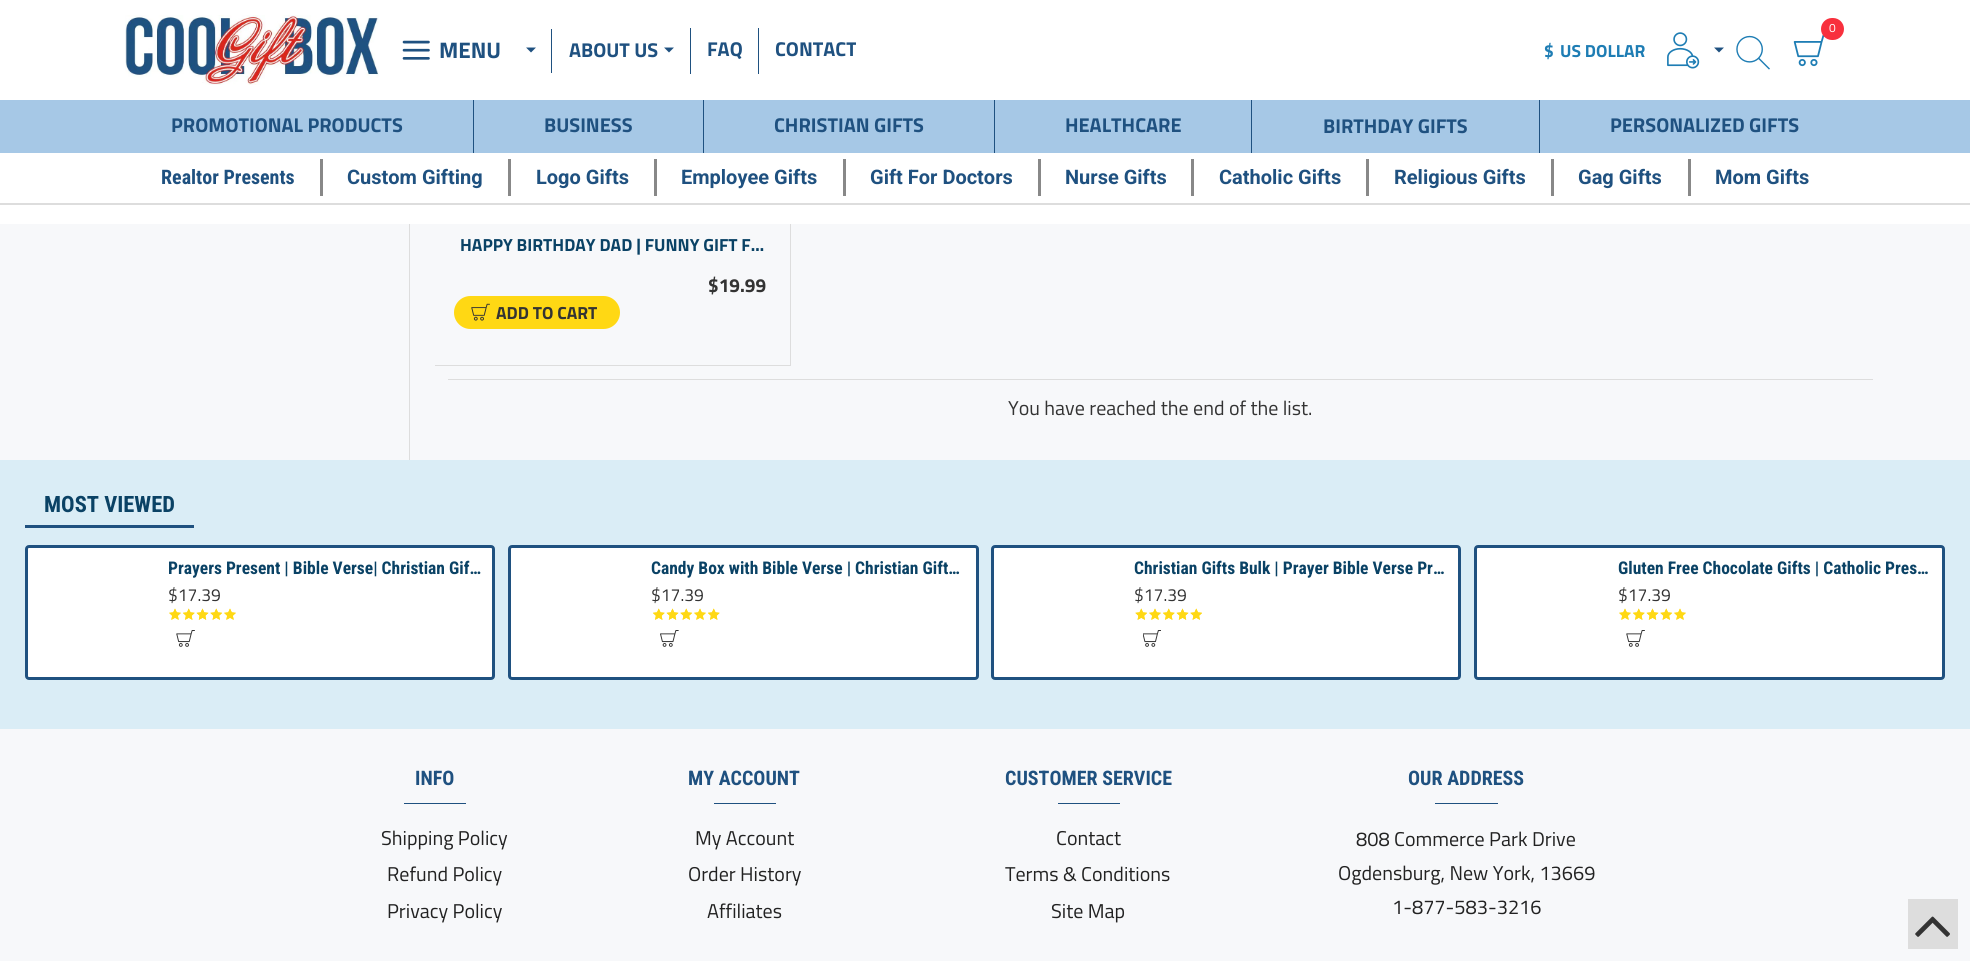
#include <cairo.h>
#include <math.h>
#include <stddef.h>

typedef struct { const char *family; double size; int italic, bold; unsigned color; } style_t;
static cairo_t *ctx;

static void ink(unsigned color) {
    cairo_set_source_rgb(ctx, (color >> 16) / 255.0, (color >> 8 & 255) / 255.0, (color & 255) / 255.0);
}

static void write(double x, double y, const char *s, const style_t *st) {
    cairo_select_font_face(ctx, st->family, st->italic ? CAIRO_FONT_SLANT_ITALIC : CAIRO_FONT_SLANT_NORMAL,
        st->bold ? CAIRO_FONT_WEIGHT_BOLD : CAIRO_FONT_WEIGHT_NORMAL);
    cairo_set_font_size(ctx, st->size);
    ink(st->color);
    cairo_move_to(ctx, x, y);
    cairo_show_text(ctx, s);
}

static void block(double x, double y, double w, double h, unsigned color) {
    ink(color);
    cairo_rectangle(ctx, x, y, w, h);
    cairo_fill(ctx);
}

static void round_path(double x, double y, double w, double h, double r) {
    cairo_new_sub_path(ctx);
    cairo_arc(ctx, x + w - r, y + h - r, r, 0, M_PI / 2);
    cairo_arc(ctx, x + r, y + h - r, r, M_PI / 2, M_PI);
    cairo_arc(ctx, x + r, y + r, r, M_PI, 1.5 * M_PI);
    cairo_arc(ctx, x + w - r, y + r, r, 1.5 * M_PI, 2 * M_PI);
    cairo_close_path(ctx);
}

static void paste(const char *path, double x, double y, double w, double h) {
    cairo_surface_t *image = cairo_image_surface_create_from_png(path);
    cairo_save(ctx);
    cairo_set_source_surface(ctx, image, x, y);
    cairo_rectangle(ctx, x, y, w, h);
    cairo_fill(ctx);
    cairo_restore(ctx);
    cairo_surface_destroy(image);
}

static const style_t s1 = {"Titillium Web", 22.5, 0, 1, 0x1f5180};
static const style_t s2 = {"Titillium Web", 20, 0, 1, 0x1f5180};
static const style_t s3 = {"Titillium Web", 12, 0, 0, 0xffffff};
static const style_t s4 = {"Titillium Web", 17.5, 0, 1, 0x1e7db4};
static const style_t s5 = {"Roboto Condensed", 20, 0, 1, 0x1f5180};
static const style_t s6 = {"Roboto", 20, 0, 1, 0x1f5180};
static const style_t s7 = {"Titillium Web", 17.5, 0, 1, 0x0a4265};
static const style_t s8 = {"Titillium Web", 19, 0, 1, 0x333333};
static const style_t s9 = {"Titillium Web", 17.5, 0, 1, 0x333333};
static const style_t s10 = {"Titillium Web", 20, 0, 0, 0x333333};
static const style_t s11 = {"Roboto Condensed", 22.5, 0, 1, 0x0a4265};
static const style_t s12 = {"Roboto Condensed", 17.5, 0, 1, 0x0a4265};
static const style_t s13 = {"Titillium Web", 17.5, 0, 0, 0x333333};
static const style_t s14 = {"Titillium Web", 20, 0, 0, 0x222222};

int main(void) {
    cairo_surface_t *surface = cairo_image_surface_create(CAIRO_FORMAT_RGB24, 1970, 961);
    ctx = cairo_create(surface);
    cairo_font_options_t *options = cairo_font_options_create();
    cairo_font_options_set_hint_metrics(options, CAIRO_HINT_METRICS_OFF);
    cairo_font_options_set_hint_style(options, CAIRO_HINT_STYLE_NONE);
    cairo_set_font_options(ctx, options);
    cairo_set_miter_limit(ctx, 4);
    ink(0xf7f8fa);
    cairo_paint(ctx);
    block(0, 100, 1970, 53, 0xa6c8e6);
    block(0, 0, 1970, 100, 0xffffff);
    paste("pic1.png", 125, 15, 254, 70);
    paste("pic2.png", 402, 40, 28, 20);
    write(439, 58, "MENU", &s1);
    cairo_new_path(ctx);
    cairo_move_to(ctx, 526, 47.5);
    cairo_line_to(ctx, 536, 47.5);
    cairo_line_to(ctx, 531, 52.5);
    cairo_close_path(ctx);
    cairo_fill(ctx);
    block(551, 29, 1, 44, 0x1f5180);
    write(569, 57, "ABOUT US", &s2);
    cairo_new_path(ctx);
    cairo_move_to(ctx, 664, 47.5);
    cairo_line_to(ctx, 674, 47.5);
    cairo_line_to(ctx, 669, 52.5);
    cairo_close_path(ctx);
    cairo_fill(ctx);
    block(690, 28, 1, 46, 0x1f5180);
    write(707, 56, "FAQ", &s2);
    block(758, 28, 1, 46, 0x1f5180);
    cairo_save(ctx);
    cairo_rectangle(ctx, 775, 34, 81, 31);
    cairo_clip(ctx);
    write(775, 56, "CONTACT", &s2);
    cairo_restore(ctx);
    paste("pic3.png", 1793, 34, 32, 33);
    ink(0xf8303d);
    round_path(1821, 18, 23, 22, 11);
    cairo_fill(ctx);
    write(1829, 32, "0", &s3);
    write(1544, 57, "$", &s4);
    write(1560, 57, "US DOLLAR", &s4);
    paste("pic4.png", 1667, 32, 33, 37);
    ink(0x1f5180);
    cairo_new_path(ctx);
    cairo_move_to(ctx, 1714, 47.5);
    cairo_line_to(ctx, 1724, 47.5);
    cairo_line_to(ctx, 1719, 52.5);
    cairo_close_path(ctx);
    cairo_fill(ctx);
    paste("pic5.png", 1736, 35, 34, 35);
    write(171, 132, "PROMOTIONAL PRODUCTS", &s2);
    block(473, 100, 1, 53, 0x1f5180);
    write(544, 132, "BUSINESS", &s2);
    block(703, 100, 1, 53, 0x1f5180);
    write(774, 132, "CHRISTIAN GIFTS", &s2);
    block(994, 100, 1, 53, 0x1f5180);
    write(1065, 132, "HEALTHCARE", &s2);
    block(1251, 100, 1, 53, 0x1f5180);
    write(1323, 133, "BIRTHDAY GIFTS", &s2);
    block(1539, 100, 1, 53, 0x1f5180);
    write(1610, 132, "PERSONALIZED GIFTS", &s2);
    block(0, 203, 1970, 2, 0xdddddd);
    block(0, 153, 1970, 50, 0xffffff);
    block(320, 159, 3, 37, 0x888888);
    write(161, 184, "Realtor Presents", &s5);
    block(508, 159, 3, 37, 0x888888);
    write(347, 184, "Custom Gifting", &s6);
    block(654, 159, 3, 37, 0x888888);
    write(536, 184, "Logo Gifts", &s6);
    block(843, 159, 3, 37, 0x888888);
    write(681, 184, "Employee Gifts", &s6);
    block(1038, 159, 3, 37, 0x888888);
    write(870, 184, "Gift For Doctors", &s6);
    block(1191, 159, 3, 37, 0x888888);
    write(1065, 184, "Nurse Gifts", &s6);
    block(1366, 159, 3, 37, 0x888888);
    write(1219, 184, "Catholic Gifts", &s6);
    block(1551, 159, 3, 37, 0x888888);
    write(1394, 184, "Religious Gifts", &s6);
    block(1688, 159, 3, 37, 0x888888);
    write(1578, 184, "Gag Gifts", &s6);
    write(1715, 184, "Mom Gifts", &s6);
    block(0, 205, 1970, 19, 0xffffff);
    block(409, 224, 1, 236, 0xdddddd);
    block(790, 224, 1, 142, 0xdddddd);
    block(435, 365, 356, 1, 0xdddddd);
    write(460, 251, "HAPPY BIRTHDAY DAD | FUNNY GIFT F…", &s7);
    write(708, 292, "$19.99", &s8);
    ink(0xffd814);
    round_path(454, 296, 166, 33, 16.5);
    cairo_fill(ctx);
    paste("pic6.png", 471, 303, 19, 18);
    write(496, 319, "ADD TO CART", &s9);
    block(448, 379, 1425, 1, 0xdddddd);
    write(1008, 415, "You have reached the end of the list.", &s10);
    block(0, 460, 1970, 269, 0xdaedf6);
    block(25, 525, 169, 3, 0x1f5180);
    write(44, 512, "MOST VIEWED", &s11);
    ink(0xffffff);
    round_path(26.5, 546.5, 467, 132, 2.5);
    cairo_fill_preserve(ctx);
    ink(0x1f5180);
    cairo_set_line_width(ctx, 3);
    cairo_stroke(ctx);
    write(168, 574, "Prayers Present | Bible Verse| Christian Gif…", &s12);
    write(168, 601, "$17.39", &s13);
    paste("pic7.png", 169, 608, 12, 12);
    paste("pic8.png", 169, 608, 12, 12);
    paste("pic9.png", 183, 608, 12, 12);
    paste("pic10.png", 183, 608, 12, 12);
    paste("pic11.png", 196, 608, 13, 12);
    paste("pic12.png", 196, 608, 13, 12);
    paste("pic13.png", 210, 608, 12, 12);
    paste("pic14.png", 210, 608, 12, 12);
    paste("pic7.png", 224, 608, 12, 12);
    paste("pic8.png", 224, 608, 12, 12);
    paste("pic15.png", 176, 630, 19, 17);
    ink(0xffffff);
    round_path(509.5, 546.5, 468, 132, 2.5);
    cairo_fill_preserve(ctx);
    ink(0x1f5180);
    cairo_stroke(ctx);
    write(651, 574, "Candy Box with Bible Verse | Christian Gift…", &s12);
    write(651, 601, "$17.39", &s13);
    paste("pic9.png", 653, 608, 12, 12);
    paste("pic10.png", 653, 608, 12, 12);
    paste("pic11.png", 666, 608, 13, 12);
    paste("pic12.png", 666, 608, 13, 12);
    paste("pic13.png", 680, 608, 12, 12);
    paste("pic14.png", 680, 608, 12, 12);
    paste("pic7.png", 694, 608, 12, 12);
    paste("pic8.png", 694, 608, 12, 12);
    paste("pic9.png", 708, 608, 12, 12);
    paste("pic10.png", 708, 608, 12, 12);
    paste("pic16.png", 660, 630, 19, 17);
    ink(0xffffff);
    round_path(992.5, 546.5, 467, 132, 2.5);
    cairo_fill_preserve(ctx);
    ink(0x1f5180);
    cairo_stroke(ctx);
    write(1134, 574, "Christian Gifts Bulk | Prayer Bible Verse Pr…", &s12);
    write(1134, 601, "$17.39", &s13);
    paste("pic13.png", 1135, 608, 12, 12);
    paste("pic14.png", 1135, 608, 12, 12);
    paste("pic7.png", 1149, 608, 12, 12);
    paste("pic8.png", 1149, 608, 12, 12);
    paste("pic9.png", 1163, 608, 12, 12);
    paste("pic10.png", 1163, 608, 12, 12);
    paste("pic11.png", 1176, 608, 13, 12);
    paste("pic12.png", 1176, 608, 13, 12);
    paste("pic13.png", 1190, 608, 12, 12);
    paste("pic14.png", 1190, 608, 12, 12);
    paste("pic17.png", 1143, 630, 18, 17);
    ink(0xffffff);
    round_path(1475.5, 546.5, 468, 132, 2.5);
    cairo_fill_preserve(ctx);
    ink(0x1f5180);
    cairo_stroke(ctx);
    write(1618, 574, "Gluten Free Chocolate Gifts | Catholic Pres…", &s12);
    write(1618, 601, "$17.39", &s13);
    paste("pic7.png", 1619, 608, 12, 12);
    paste("pic8.png", 1619, 608, 12, 12);
    paste("pic9.png", 1633, 608, 12, 12);
    paste("pic10.png", 1633, 608, 12, 12);
    paste("pic11.png", 1646, 608, 13, 12);
    paste("pic12.png", 1646, 608, 13, 12);
    paste("pic13.png", 1660, 608, 12, 12);
    paste("pic14.png", 1660, 608, 12, 12);
    paste("pic7.png", 1674, 608, 12, 12);
    paste("pic8.png", 1674, 608, 12, 12);
    paste("pic15.png", 1626, 630, 19, 17);
    write(415, 785, "INFO", &s5);
    block(404, 803, 62, 1, 0x1f5180);
    write(381, 845, "Shipping Policy", &s14);
    write(387, 881, "Refund Policy", &s14);
    write(387, 918, "Privacy Policy", &s14);
    write(688, 785, "MY ACCOUNT", &s5);
    block(714, 803, 62, 1, 0x1f5180);
    write(695, 845, "My Account", &s14);
    write(688, 881, "Order History", &s14);
    write(707, 918, "Affiliates", &s14);
    write(1005, 785, "CUSTOMER SERVICE", &s5);
    block(1058, 803, 62, 1, 0x1f5180);
    write(1056, 845, "Contact", &s14);
    write(1005, 881, "Terms & Conditions", &s14);
    write(1051, 918, "Site Map", &s14);
    write(1408, 785, "OUR ADDRESS", &s5);
    block(1435, 803, 63, 1, 0x1f5180);
    write(1356, 846, "808 Commerce Park Drive", &s14);
    write(1338, 880, "Ogdensburg, New York, 13669", &s14);
    write(1392, 914, "1-877-583-3216", &s14);
    block(1908, 899, 50, 50, 0xdddddd);
    paste("pic18.png", 1915, 916, 35, 21);
    cairo_surface_write_to_png(surface, "screenshot.png");
    cairo_font_options_destroy(options);
    cairo_destroy(ctx);
    cairo_surface_destroy(surface);
    return 0;
}
